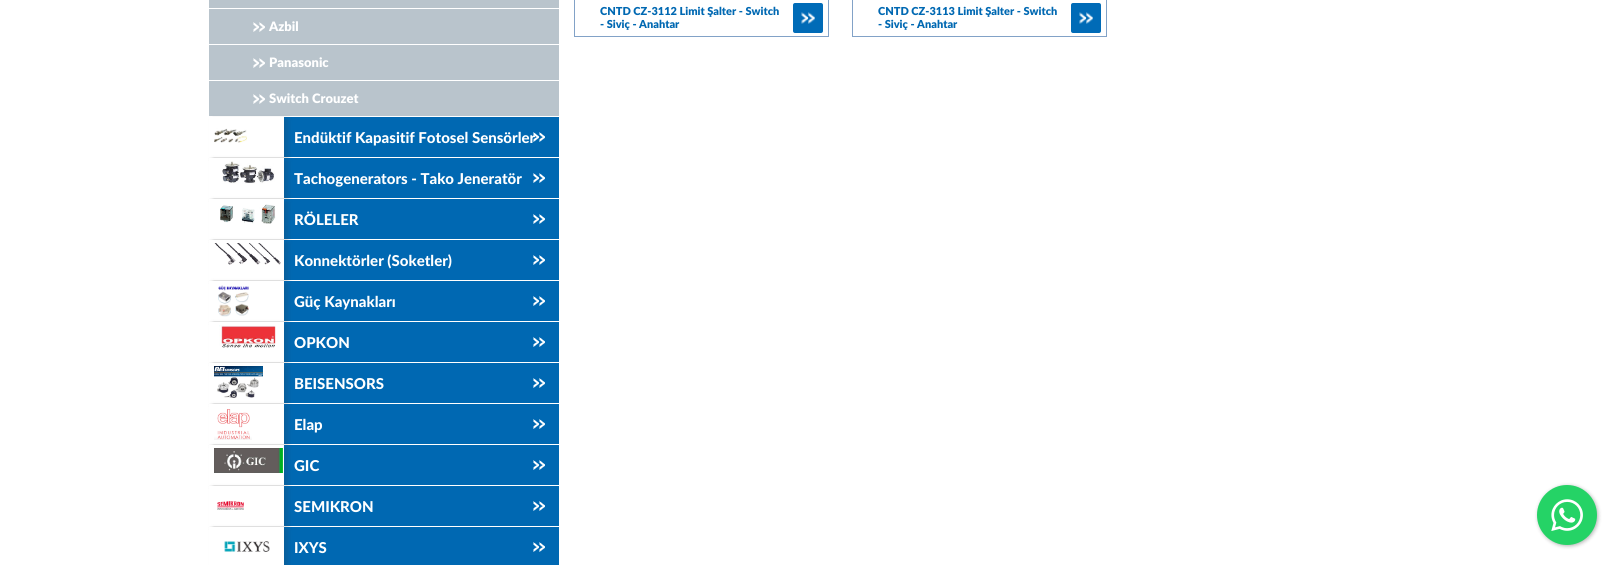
#include <cairo.h>
#include <math.h>
#include <stddef.h>

typedef struct { const char *family; double size; int italic, bold; unsigned color; } style_t;
static cairo_t *ctx;

static void ink(unsigned color) {
    cairo_set_source_rgb(ctx, (color >> 16) / 255.0, (color >> 8 & 255) / 255.0, (color & 255) / 255.0);
}

static void write(double x, double y, const char *s, const style_t *st) {
    cairo_select_font_face(ctx, st->family, st->italic ? CAIRO_FONT_SLANT_ITALIC : CAIRO_FONT_SLANT_NORMAL,
        st->bold ? CAIRO_FONT_WEIGHT_BOLD : CAIRO_FONT_WEIGHT_NORMAL);
    cairo_set_font_size(ctx, st->size);
    ink(st->color);
    cairo_move_to(ctx, x, y);
    cairo_show_text(ctx, s);
}

static void block(double x, double y, double w, double h, unsigned color) {
    ink(color);
    cairo_rectangle(ctx, x, y, w, h);
    cairo_fill(ctx);
}

static void round_path(double x, double y, double w, double h, double r) {
    cairo_new_sub_path(ctx);
    cairo_arc(ctx, x + w - r, y + h - r, r, 0, M_PI / 2);
    cairo_arc(ctx, x + r, y + h - r, r, M_PI / 2, M_PI);
    cairo_arc(ctx, x + r, y + r, r, M_PI, 1.5 * M_PI);
    cairo_arc(ctx, x + w - r, y + r, r, 1.5 * M_PI, 2 * M_PI);
    cairo_close_path(ctx);
}

static void blur_box(double x, double y, double w, double h, double r, double blur, double alpha) {
    cairo_push_group_with_content(ctx, CAIRO_CONTENT_ALPHA);
    cairo_set_operator(ctx, CAIRO_OPERATOR_SOURCE);
    for (int i = 15; i >= -15 && fmin(w, h) + blur * i / 3 > 0; i -= 2) {
        double e = blur * i / 6;
        cairo_set_source_rgba(ctx, 0, 0, 0, alpha * erfc((i - 1) / 8.5) / 2);
        round_path(x - e, y - e, w + 2 * e, h + 2 * e, fmax(0, fmin(r + e + blur * .6, fmin(w, h) / 2 + e)));
        cairo_fill(ctx);
    }
    cairo_pattern_t *soft = cairo_pop_group(ctx);
    cairo_mask(ctx, soft);
    cairo_pattern_destroy(soft);
}

static void paste(const char *path, double x, double y, double w, double h) {
    cairo_surface_t *image = cairo_image_surface_create_from_png(path);
    cairo_save(ctx);
    cairo_set_source_surface(ctx, image, x, y);
    cairo_rectangle(ctx, x, y, w, h);
    cairo_fill(ctx);
    cairo_restore(ctx);
    cairo_surface_destroy(image);
}

static const style_t s1 = {"Lato Black", 11, 0, 0, 0x0068b2};
static const style_t s2 = {"Lato Black", 13, 0, 0, 0xffffff};
static const style_t s3 = {"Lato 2 Black", 15, 0, 0, 0xffffff};

int main(void) {
    cairo_surface_t *surface = cairo_image_surface_create(CAIRO_FORMAT_RGB24, 1617, 565);
    ctx = cairo_create(surface);
    cairo_font_options_t *options = cairo_font_options_create();
    cairo_font_options_set_hint_metrics(options, CAIRO_HINT_METRICS_OFF);
    cairo_font_options_set_hint_style(options, CAIRO_HINT_STYLE_NONE);
    cairo_set_font_options(ctx, options);
    cairo_set_miter_limit(ctx, 4);
    ink(0xffffff);
    cairo_paint(ctx);
    cairo_rectangle(ctx, 574.5, -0.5, 254, 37);
    ink(0x82a2c7);
    cairo_set_line_width(ctx, 1);
    cairo_stroke(ctx);
    write(600, 15, "CNTD CZ-3112 Limit Şalter - Switch", &s1);
    write(600, 28, "- Siviç - Anahtar", &s1);
    ink(0x006bb7);
    round_path(793, 3, 30, 30, 2);
    cairo_fill(ctx);
    paste("pic1.png", 801, 12, 14, 12);
    cairo_rectangle(ctx, 852.5, -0.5, 254, 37);
    ink(0x82a2c7);
    cairo_stroke(ctx);
    write(878, 15, "CNTD CZ-3113 Limit Şalter - Switch", &s1);
    write(878, 28, "- Siviç - Anahtar", &s1);
    ink(0x006bb7);
    round_path(1071, 3, 30, 30, 2);
    cairo_fill(ctx);
    paste("pic1.png", 1079, 12, 14, 12);
    block(209, 0, 350, 8, 0xb9c4cc);
    block(209, 9, 350, 35, 0xb9c4cc);
    paste("pic2.png", 253, 22, 12, 10);
    write(269, 31, "Azbil", &s2);
    block(209, 45, 350, 35, 0xb9c4cc);
    paste("pic2.png", 253, 58, 12, 10);
    write(269, 67, "Panasonic", &s2);
    block(209, 81, 350, 35, 0xb9c4cc);
    paste("pic2.png", 253, 94, 12, 10);
    write(269, 103, "Switch Crouzet", &s2);
    block(284, 117, 275, 40, 0x0068b2);
    paste("pic3.png", 533, 132, 12, 10);
    ink(0x323232);
    blur_box(213, 119, 75, 40, 0, 2.5, 0.18);
    block(209, 117, 75, 40, 0xffffff);
    paste("pic4.png", 214, 128, 33, 15);
    write(294, 143, "Endüktif Kapasitif Fotosel Sensörler", &s3);
    block(284, 158, 275, 40, 0x0068b2);
    paste("pic3.png", 533, 173, 12, 10);
    ink(0x323232);
    blur_box(213, 160, 75, 40, 0, 2.5, 0.18);
    block(209, 158, 75, 40, 0xffffff);
    paste("pic5.png", 222, 161, 53, 23);
    write(294, 184, "Tachogenerators - Tako Jeneratör", &s3);
    block(284, 199, 275, 40, 0x0068b2);
    paste("pic3.png", 533, 214, 12, 10);
    ink(0x323232);
    blur_box(213, 201, 75, 40, 0, 2.5, 0.18);
    block(209, 199, 75, 40, 0xffffff);
    paste("pic6.png", 220, 204, 56, 20);
    write(294, 225, "RÖLELER", &s3);
    block(284, 240, 275, 40, 0x0068b2);
    paste("pic3.png", 533, 255, 12, 10);
    ink(0x323232);
    blur_box(213, 242, 75, 40, 0, 2.5, 0.18);
    block(209, 240, 75, 40, 0xffffff);
    paste("pic7.png", 214, 243, 67, 22);
    write(294, 266, "Konnektörler (Soketler)", &s3);
    block(284, 281, 275, 40, 0x0068b2);
    paste("pic3.png", 533, 296, 12, 10);
    ink(0x323232);
    blur_box(213, 283, 75, 40, 0, 2.5, 0.18);
    block(209, 281, 75, 40, 0xffffff);
    paste("pic8.png", 218, 285, 31, 32);
    write(294, 307, "Güç Kaynakları", &s3);
    block(284, 322, 275, 40, 0x0068b2);
    paste("pic3.png", 533, 337, 12, 10);
    ink(0x323232);
    blur_box(213, 324, 75, 40, 0, 2.5, 0.18);
    block(209, 322, 75, 40, 0xffffff);
    paste("pic9.png", 219, 325, 57, 23);
    write(294, 348, "OPKON", &s3);
    block(284, 363, 275, 40, 0x0068b2);
    paste("pic3.png", 533, 378, 12, 10);
    ink(0x323232);
    blur_box(213, 365, 75, 40, 0, 2.5, 0.18);
    block(209, 363, 75, 40, 0xffffff);
    paste("pic10.png", 214, 366, 49, 32);
    write(294, 389, "BEISENSORS", &s3);
    block(284, 404, 275, 40, 0x0068b2);
    paste("pic3.png", 533, 419, 12, 10);
    ink(0x323232);
    blur_box(213, 406, 75, 40, 0, 2.5, 0.18);
    block(209, 404, 75, 40, 0xffffff);
    paste("pic11.png", 214, 409, 38, 31);
    write(294, 430, "Elap", &s3);
    block(284, 445, 275, 40, 0x0068b2);
    paste("pic3.png", 533, 460, 12, 10);
    ink(0x323232);
    blur_box(213, 447, 75, 40, 0, 2.5, 0.18);
    block(209, 445, 75, 40, 0xffffff);
    paste("pic12.png", 214, 448, 69, 25);
    write(294, 471, "GIC", &s3);
    block(284, 486, 275, 40, 0x0068b2);
    paste("pic3.png", 533, 501, 12, 10);
    ink(0x323232);
    blur_box(213, 488, 75, 40, 0, 2.5, 0.18);
    block(209, 486, 75, 40, 0xffffff);
    paste("pic13.png", 217, 501, 27, 9);
    write(294, 512, "SEMIKRON", &s3);
    block(284, 527, 275, 38, 0x0068b2);
    paste("pic3.png", 533, 542, 12, 10);
    ink(0x323232);
    blur_box(213, 529, 75, 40, 0, 2.5, 0.18);
    block(209, 527, 75, 38, 0xffffff);
    paste("pic14.png", 224, 541, 46, 11);
    write(294, 553, "IXYS", &s3);
    ink(0x000000);
    blur_box(1538, 486, 60, 60, 30, 2, 0.3);
    ink(0x25d366);
    cairo_arc(ctx, 1567, 515, 30, 0, 2 * M_PI);
    cairo_fill(ctx);
    paste("pic15.png", 1551, 499, 32, 32);
    cairo_surface_write_to_png(surface, "screenshot.png");
    cairo_font_options_destroy(options);
    cairo_destroy(ctx);
    cairo_surface_destroy(surface);
    return 0;
}
